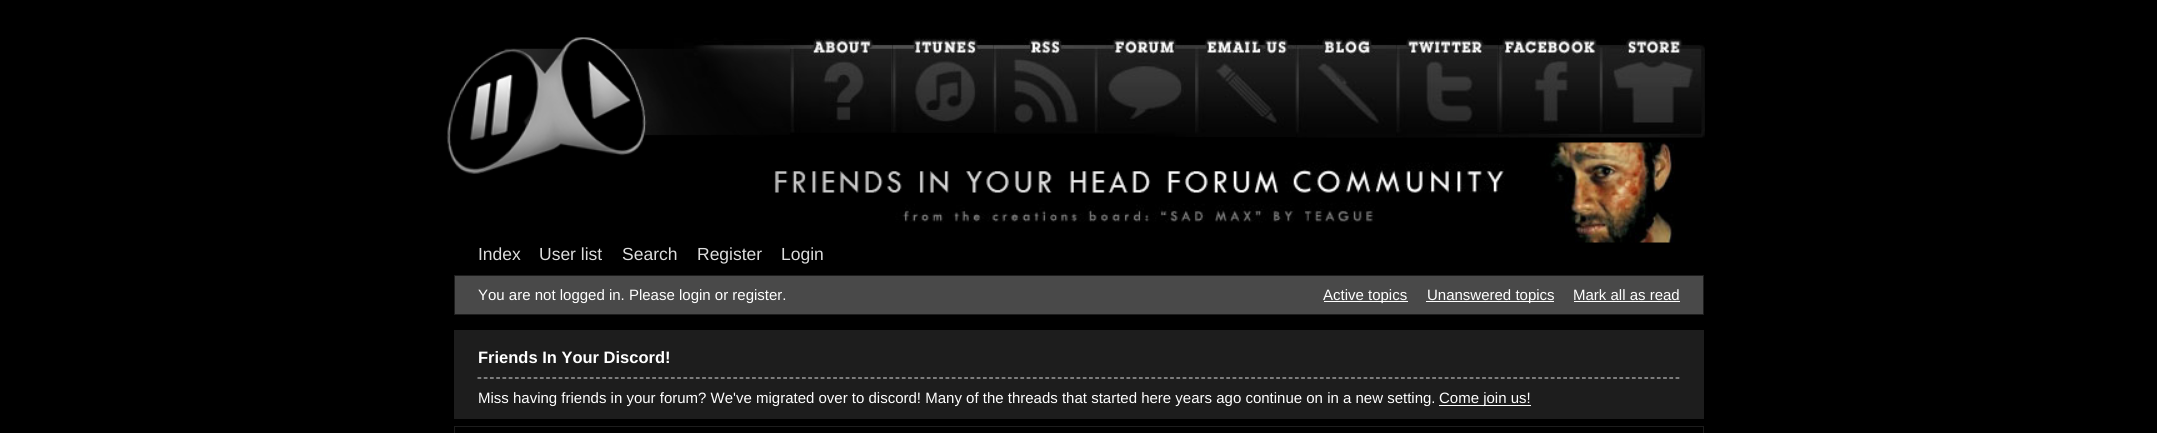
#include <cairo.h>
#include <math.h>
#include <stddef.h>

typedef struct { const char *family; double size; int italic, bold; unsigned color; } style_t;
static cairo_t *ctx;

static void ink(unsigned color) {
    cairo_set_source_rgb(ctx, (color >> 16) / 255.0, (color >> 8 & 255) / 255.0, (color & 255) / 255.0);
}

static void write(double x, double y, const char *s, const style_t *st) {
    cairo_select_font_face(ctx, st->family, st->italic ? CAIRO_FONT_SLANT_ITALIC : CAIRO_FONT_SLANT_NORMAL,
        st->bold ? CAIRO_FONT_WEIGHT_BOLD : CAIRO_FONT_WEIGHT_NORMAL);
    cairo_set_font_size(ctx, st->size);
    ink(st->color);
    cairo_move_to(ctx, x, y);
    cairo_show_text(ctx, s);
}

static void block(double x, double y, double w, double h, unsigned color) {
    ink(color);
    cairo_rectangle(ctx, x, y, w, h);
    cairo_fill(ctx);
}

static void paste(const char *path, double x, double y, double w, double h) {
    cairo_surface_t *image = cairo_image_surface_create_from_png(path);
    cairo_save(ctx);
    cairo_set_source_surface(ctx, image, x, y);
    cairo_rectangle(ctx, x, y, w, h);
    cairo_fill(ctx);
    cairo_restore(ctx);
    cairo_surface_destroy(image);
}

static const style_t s1 = {"Liberation Sans", 17.5, 0, 0, 0xdddddd};
static const style_t s2 = {"Liberation Sans", 15, 0, 0, 0xffffff};
static const style_t s3 = {"Liberation Sans", 16.5, 0, 1, 0xffffff};

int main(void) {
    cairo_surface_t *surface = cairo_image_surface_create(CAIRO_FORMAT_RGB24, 2157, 433);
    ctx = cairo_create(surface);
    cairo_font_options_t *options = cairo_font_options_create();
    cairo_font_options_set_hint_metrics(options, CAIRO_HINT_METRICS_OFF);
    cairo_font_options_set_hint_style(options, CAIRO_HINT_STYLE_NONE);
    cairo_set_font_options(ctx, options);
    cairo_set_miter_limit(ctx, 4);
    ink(0x000000);
    cairo_paint(ctx);
    paste("pic1.png", 446, 37, 344, 137);
    paste("pic2.png", 790, 37, 103, 96);
    paste("pic3.png", 892, 37, 102, 96);
    paste("pic4.png", 993, 38, 102, 96);
    paste("pic5.png", 1095, 38, 100, 99);
    paste("pic6.png", 1195, 38, 102, 99);
    paste("pic7.png", 1296, 38, 101, 100);
    paste("pic8.png", 1396, 37, 103, 101);
    paste("pic9.png", 1499, 38, 101, 100);
    paste("pic10.png", 1600, 38, 105, 100);
    paste("pic11.png", 774, 142, 901, 101);
    write(478, 260, "Index", &s1);
    write(539, 260, "User list", &s1);
    write(622, 260, "Search", &s1);
    write(697, 260, "Register", &s1);
    write(781, 260, "Login", &s1);
    ink(0x494949);
    cairo_rectangle(ctx, 454.5, 275.5, 1249, 39);
    cairo_fill_preserve(ctx);
    ink(0x1d1d1d);
    cairo_set_line_width(ctx, 1);
    cairo_stroke(ctx);
    write(478, 300, "You are not logged in. Please login or register.", &s2);
    block(1324, 301, 84, 1, 0xffffff);
    write(1323, 300, "Active topics", &s2);
    block(1426, 301, 128, 1, 0xffffff);
    write(1427, 300, "Unanswered topics", &s2);
    write(1573, 300, "Mark all as read", &s2);
    block(1574, 301, 106, 1, 0xffffff);
    block(454, 330, 1250, 89, 0x1d1d1d);
    cairo_new_path(ctx);
    cairo_move_to(ctx, 477.5, 378);
    cairo_line_to(ctx, 1680, 378);
    ink(0xbbbbbb);
    cairo_set_line_width(ctx, 1.2);
    cairo_set_dash(ctx, (double[]){3.75, 2.49}, 2, 0);
    cairo_stroke(ctx);
    write(478, 363, "Friends In Your Discord!", &s3);
    write(478, 403, "Miss having friends in your forum? We've migrated over to discord! Many of the threads that started here years ago continue on in a new setting.", &s2);
    block(1439, 405, 92, 1, 0xffffff);
    write(1439, 403, "Come join us!", &s2);
    cairo_rectangle(ctx, 454.5, 426.5, 1249, 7);
    ink(0x1d1d1d);
    cairo_set_line_width(ctx, 1);
    cairo_set_dash(ctx, NULL, 0, 0);
    cairo_stroke(ctx);
    cairo_surface_write_to_png(surface, "screenshot.png");
    cairo_font_options_destroy(options);
    cairo_destroy(ctx);
    cairo_surface_destroy(surface);
    return 0;
}
